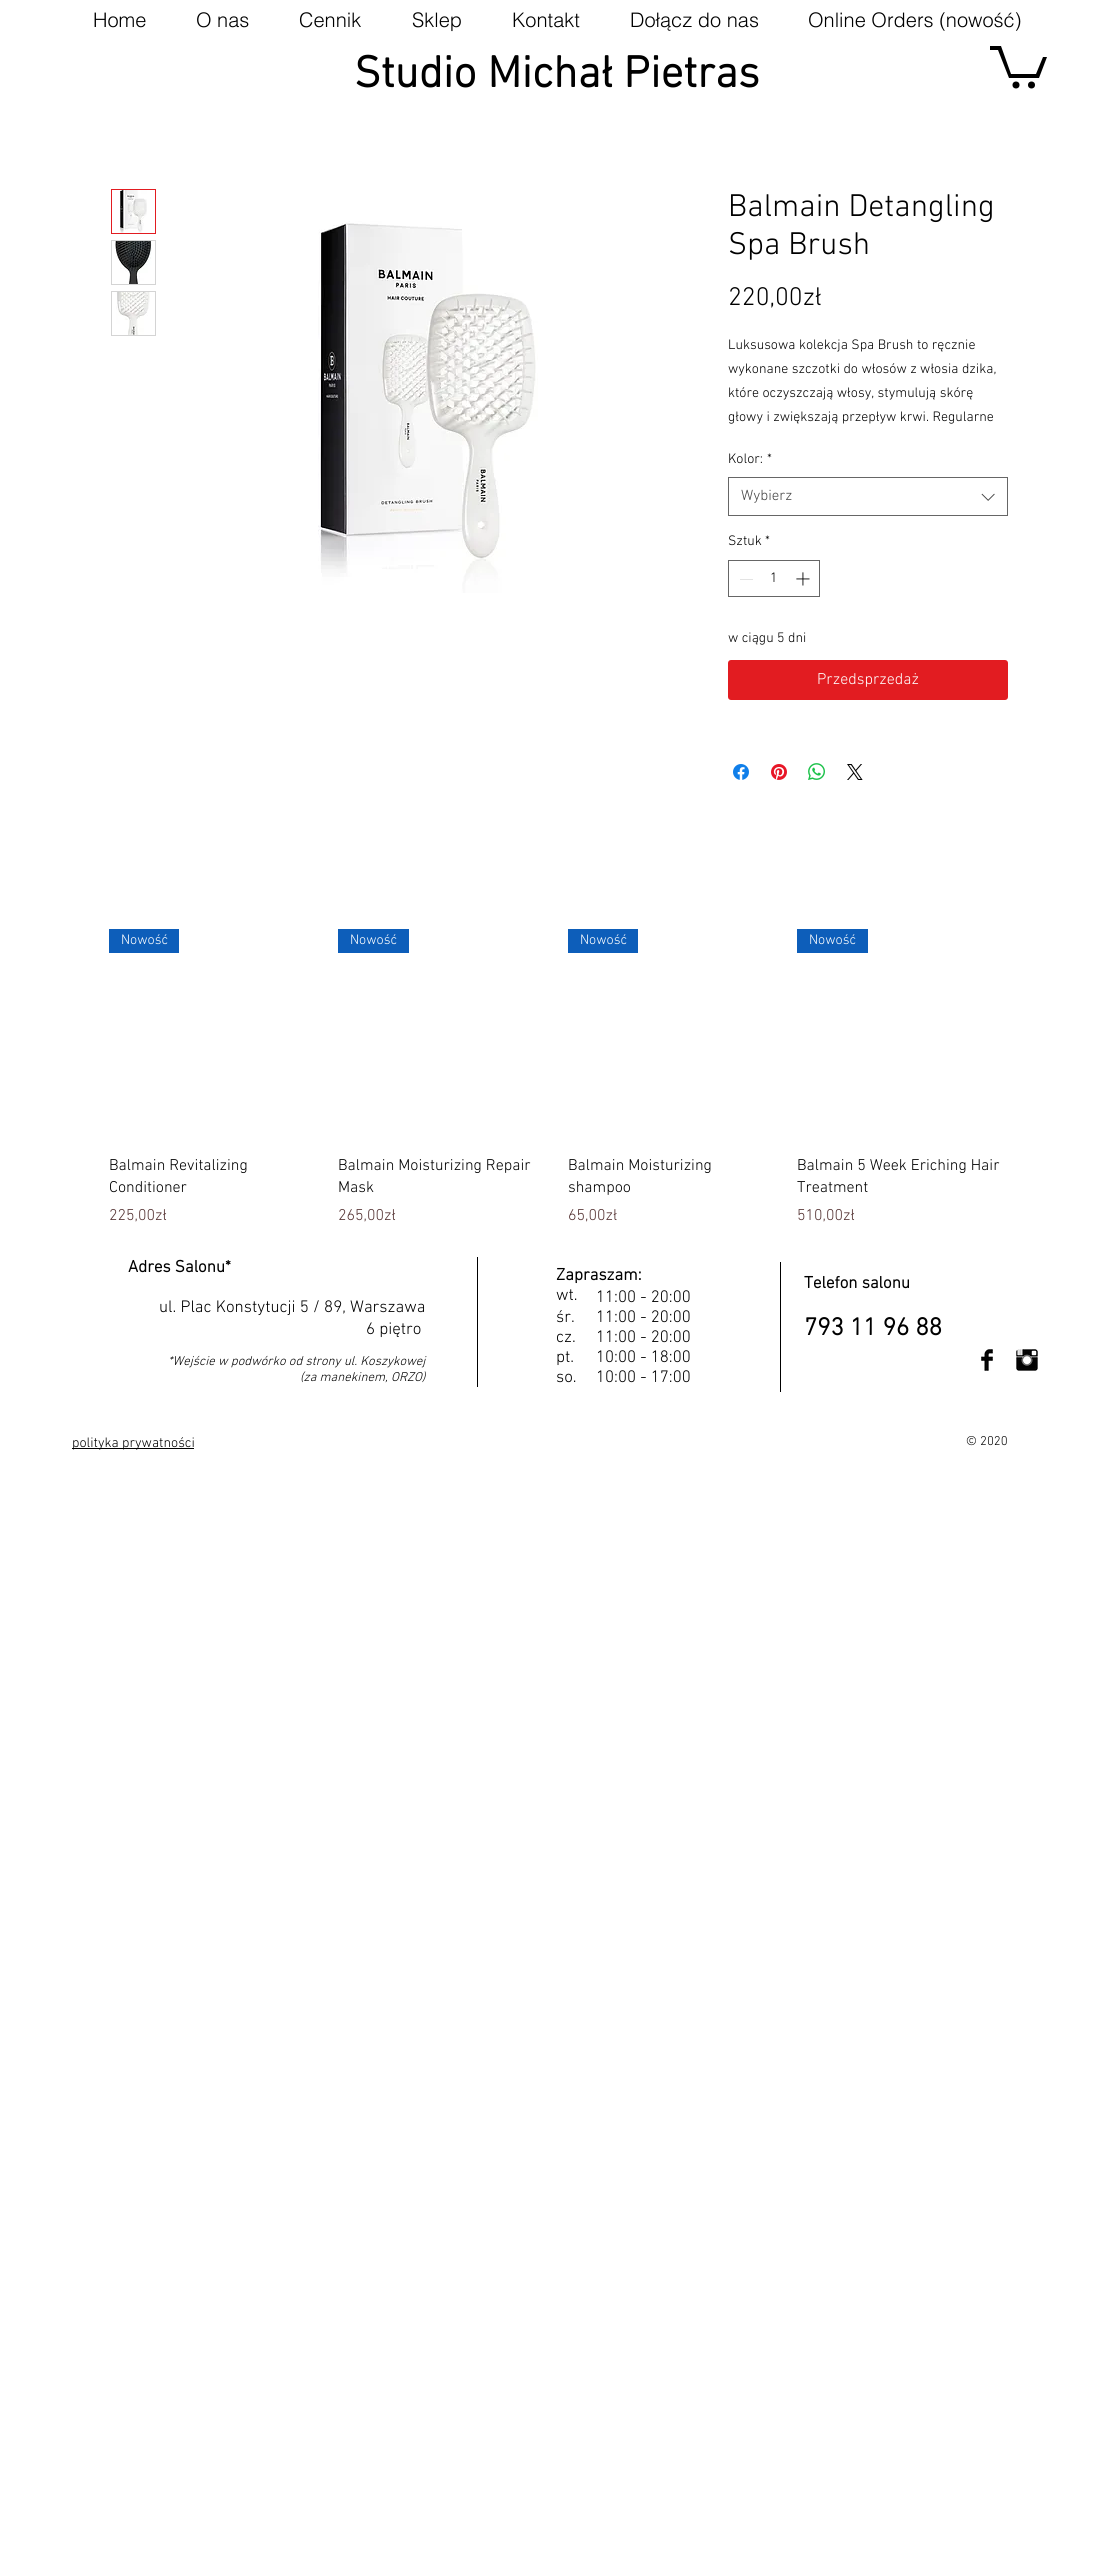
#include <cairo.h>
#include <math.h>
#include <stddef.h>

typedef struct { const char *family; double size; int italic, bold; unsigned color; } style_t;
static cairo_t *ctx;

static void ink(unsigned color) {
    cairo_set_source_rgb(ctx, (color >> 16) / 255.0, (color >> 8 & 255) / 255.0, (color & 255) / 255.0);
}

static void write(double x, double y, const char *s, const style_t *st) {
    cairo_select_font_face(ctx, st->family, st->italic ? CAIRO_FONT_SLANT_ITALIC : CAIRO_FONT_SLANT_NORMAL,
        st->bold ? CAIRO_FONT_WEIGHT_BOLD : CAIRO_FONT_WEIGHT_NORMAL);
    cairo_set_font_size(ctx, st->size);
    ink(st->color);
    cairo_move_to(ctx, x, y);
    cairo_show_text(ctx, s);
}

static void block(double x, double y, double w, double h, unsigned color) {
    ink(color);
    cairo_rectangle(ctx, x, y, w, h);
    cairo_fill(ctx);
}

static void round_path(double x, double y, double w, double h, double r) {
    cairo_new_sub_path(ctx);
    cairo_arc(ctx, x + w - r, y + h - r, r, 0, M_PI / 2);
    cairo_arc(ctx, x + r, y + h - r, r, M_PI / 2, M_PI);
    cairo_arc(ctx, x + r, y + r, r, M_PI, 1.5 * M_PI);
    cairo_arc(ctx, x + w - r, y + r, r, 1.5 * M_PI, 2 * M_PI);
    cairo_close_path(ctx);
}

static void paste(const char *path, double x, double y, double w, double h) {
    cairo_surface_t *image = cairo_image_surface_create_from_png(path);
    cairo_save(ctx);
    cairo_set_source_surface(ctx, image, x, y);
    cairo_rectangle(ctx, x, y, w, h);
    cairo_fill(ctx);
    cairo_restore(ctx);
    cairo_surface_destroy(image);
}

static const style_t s1 = {"helvetica Light", 20, 0, 0, 0x000000};
static const style_t s2 = {"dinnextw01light", 45, 0, 1, 0x000000};
static const style_t s3 = {"dinnextw01light Light", 32, 0, 0, 0x000000};
static const style_t s4 = {"dinnextw01light Light", 26, 0, 0, 0x000000};
static const style_t s5 = {"dinnextw01light Light", 14, 0, 0, 0x000000};
static const style_t s6 = {"dinnextw01light Light", 15, 0, 0, 0x444444};
static const style_t s7 = {"dinnextw01light Light", 16, 0, 0, 0xffffff};
static const style_t s8 = {"dinnextw01light Light", 14, 0, 0, 0xffffff};
static const style_t s9 = {"dinnextw01light Light", 16, 0, 0, 0x000000};
static const style_t s10 = {"dinnextw01light Light", 16, 0, 0, 0x543232};
static const style_t s11 = {"dinnextw01light", 17, 0, 1, 0x000000};
static const style_t s12 = {"dinnextw01light Light", 17, 0, 0, 0x000000};
static const style_t s13 = {"dinnextw01light Light", 13, 1, 0, 0x000000};
static const style_t s14 = {"dinnextw01light", 25, 0, 1, 0x000000};
static const style_t s15 = {"dinnextw01light Light", 13, 0, 0, 0x000000};

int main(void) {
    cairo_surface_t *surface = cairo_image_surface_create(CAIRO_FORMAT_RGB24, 1115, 2552);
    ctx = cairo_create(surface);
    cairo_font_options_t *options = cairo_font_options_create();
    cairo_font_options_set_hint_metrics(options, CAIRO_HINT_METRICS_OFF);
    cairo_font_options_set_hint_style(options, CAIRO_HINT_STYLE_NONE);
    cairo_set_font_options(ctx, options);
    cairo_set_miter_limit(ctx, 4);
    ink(0xffffff);
    cairo_paint(ctx);
    write(93, 27, "Home", &s1);
    write(196, 27, "O nas", &s1);
    write(299, 27, "Cennik", &s1);
    write(412, 27, "Sklep", &s1);
    write(512, 27, "Kontakt", &s1);
    write(630, 27, "Dołącz do nas", &s1);
    write(808, 27, "Online Orders (nowość)", &s1);
    write(354, 87, "Studio Michał Pietras", &s2);
    cairo_new_path(ctx);
    cairo_move_to(ctx, 1047, 57);
    cairo_line_to(ctx, 1039, 78);
    cairo_line_to(ctx, 1009, 78);
    cairo_line_to(ctx, 998, 50);
    cairo_line_to(ctx, 990, 50);
    cairo_line_to(ctx, 990, 46);
    cairo_line_to(ctx, 1001, 46);
    cairo_line_to(ctx, 1011, 74);
    cairo_line_to(ctx, 1036, 74);
    cairo_line_to(ctx, 1043, 57);
    cairo_fill(ctx);
    cairo_arc(ctx, 1031.5, 85, 3.5, 0, 2 * M_PI);
    cairo_fill(ctx);
    cairo_arc(ctx, 1016, 85, 3.5, 0, 2 * M_PI);
    cairo_fill(ctx);
    cairo_rectangle(ctx, 111.5, 189.5, 44, 44);
    ink(0xe21c21);
    cairo_set_line_width(ctx, 1);
    cairo_stroke(ctx);
    paste("pic1.png", 120, 190, 27, 43);
    cairo_rectangle(ctx, 111.5, 240.5, 44, 44);
    ink(0xd4d4d4);
    cairo_stroke(ctx);
    paste("pic2.png", 113, 241, 39, 43);
    cairo_rectangle(ctx, 111.5, 291.5, 44, 44);
    cairo_stroke(ctx);
    paste("pic3.png", 116, 292, 34, 43);
    paste("pic4.png", 318, 221, 220, 372);
    write(728, 216, "Balmain Detangling", &s3);
    write(728, 254, "Spa Brush", &s3);
    write(728, 305, "220,00zł", &s4);
    write(728, 349, "Luksusowa kolekcja Spa Brush to ręcznie", &s5);
    write(728, 373, "wykonane szczotki do włosów z włosia dzika,", &s5);
    write(728, 397, "które oczyszczają włosy, stymulują skórę", &s5);
    write(728, 421, "głowy i zwiększają przepływ krwi. Regularne", &s5);
    write(728, 463, "Kolor:", &s5);
    write(767, 463, "*", &s5);
    cairo_rectangle(ctx, 728.5, 477.5, 279, 38);
    ink(0x666666);
    cairo_stroke(ctx);
    write(741, 500, "Wybierz", &s6);
    paste("pic5.png", 981, 493, 14, 8);
    write(728, 545, "Sztuk", &s5);
    write(765, 545, "*", &s5);
    cairo_rectangle(ctx, 728.5, 560.5, 91, 36);
    ink(0x666666);
    cairo_stroke(ctx);
    block(740, 579, 13, 1, 0xe3e3e3);
    write(770, 582, "1", &s5);
    paste("pic6.png", 796, 572, 14, 14);
    write(728, 642, "w ciągu 5 dni", &s5);
    ink(0xe21c21);
    round_path(728, 660, 280, 40, 3);
    cairo_fill(ctx);
    write(817, 684, "Przedsprzedaż", &s7);
    paste("pic7.png", 733, 764, 16, 16);
    paste("pic8.png", 771, 764, 16, 16);
    paste("pic9.png", 808, 763, 17, 17);
    paste("pic10.png", 847, 764, 16, 16);
    block(109, 929, 70, 24, 0x0d5eba);
    write(121, 944, "Nowość", &s8);
    write(109, 1170, "Balmain Revitalizing", &s9);
    write(109, 1192, "Conditioner", &s9);
    write(109, 1220, "225,00zł", &s10);
    block(338, 929, 71, 24, 0x0d5eba);
    write(350, 944, "Nowość", &s8);
    write(338, 1170, "Balmain Moisturizing Repair", &s9);
    write(338, 1192, "Mask", &s9);
    write(338, 1220, "265,00zł", &s10);
    block(568, 929, 70, 24, 0x0d5eba);
    write(580, 944, "Nowość", &s8);
    write(568, 1170, "Balmain Moisturizing", &s9);
    write(568, 1192, "shampoo", &s9);
    write(568, 1220, "65,00zł", &s10);
    block(797, 929, 71, 24, 0x0d5eba);
    write(809, 944, "Nowość", &s8);
    write(797, 1170, "Balmain 5 Week Eriching Hair", &s9);
    write(797, 1192, "Treatment", &s9);
    write(797, 1220, "510,00zł", &s10);
    write(128, 1272, "Adres Salonu*", &s11);
    write(159, 1312, "ul. Plac Konstytucji 5 / 89, Warszawa", &s12);
    write(366, 1334, "6 piętro", &s12);
    write(168, 1365, "*Wejście w podwórko od strony ul. Koszykowej", &s13);
    write(300, 1381, "(za manekinem, ORZO)", &s13);
    block(477, 1257, 1, 130, 0x000000);
    write(556, 1280, "Zapraszam:", &s11);
    write(556, 1300, "wt.", &s12);
    write(556, 1322, "śr.", &s12);
    write(556, 1342, "cz.", &s12);
    write(556, 1362, "pt.", &s12);
    write(556, 1382, "so.", &s12);
    block(780, 1262, 1, 130, 0x000000);
    write(804, 1288, "Telefon salonu", &s11);
    write(804, 1335, "793 11 96 88", &s14);
    write(596, 1302, "11:00 - 20:00", &s12);
    write(596, 1322, "11:00 - 20:00", &s12);
    write(596, 1342, "11:00 - 20:00", &s12);
    write(596, 1362, "10:00 - 18:00", &s12);
    write(596, 1382, "10:00 - 17:00", &s12);
    paste("pic11.png", 981, 1349, 12, 22);
    paste("pic12.png", 1016, 1349, 22, 22);
    block(72, 1448, 122, 1, 0x000000);
    write(72, 1447, "polityka prywatności", &s5);
    write(966, 1445, "© 2020", &s15);
    cairo_surface_write_to_png(surface, "screenshot.png");
    cairo_font_options_destroy(options);
    cairo_destroy(ctx);
    cairo_surface_destroy(surface);
    return 0;
}
